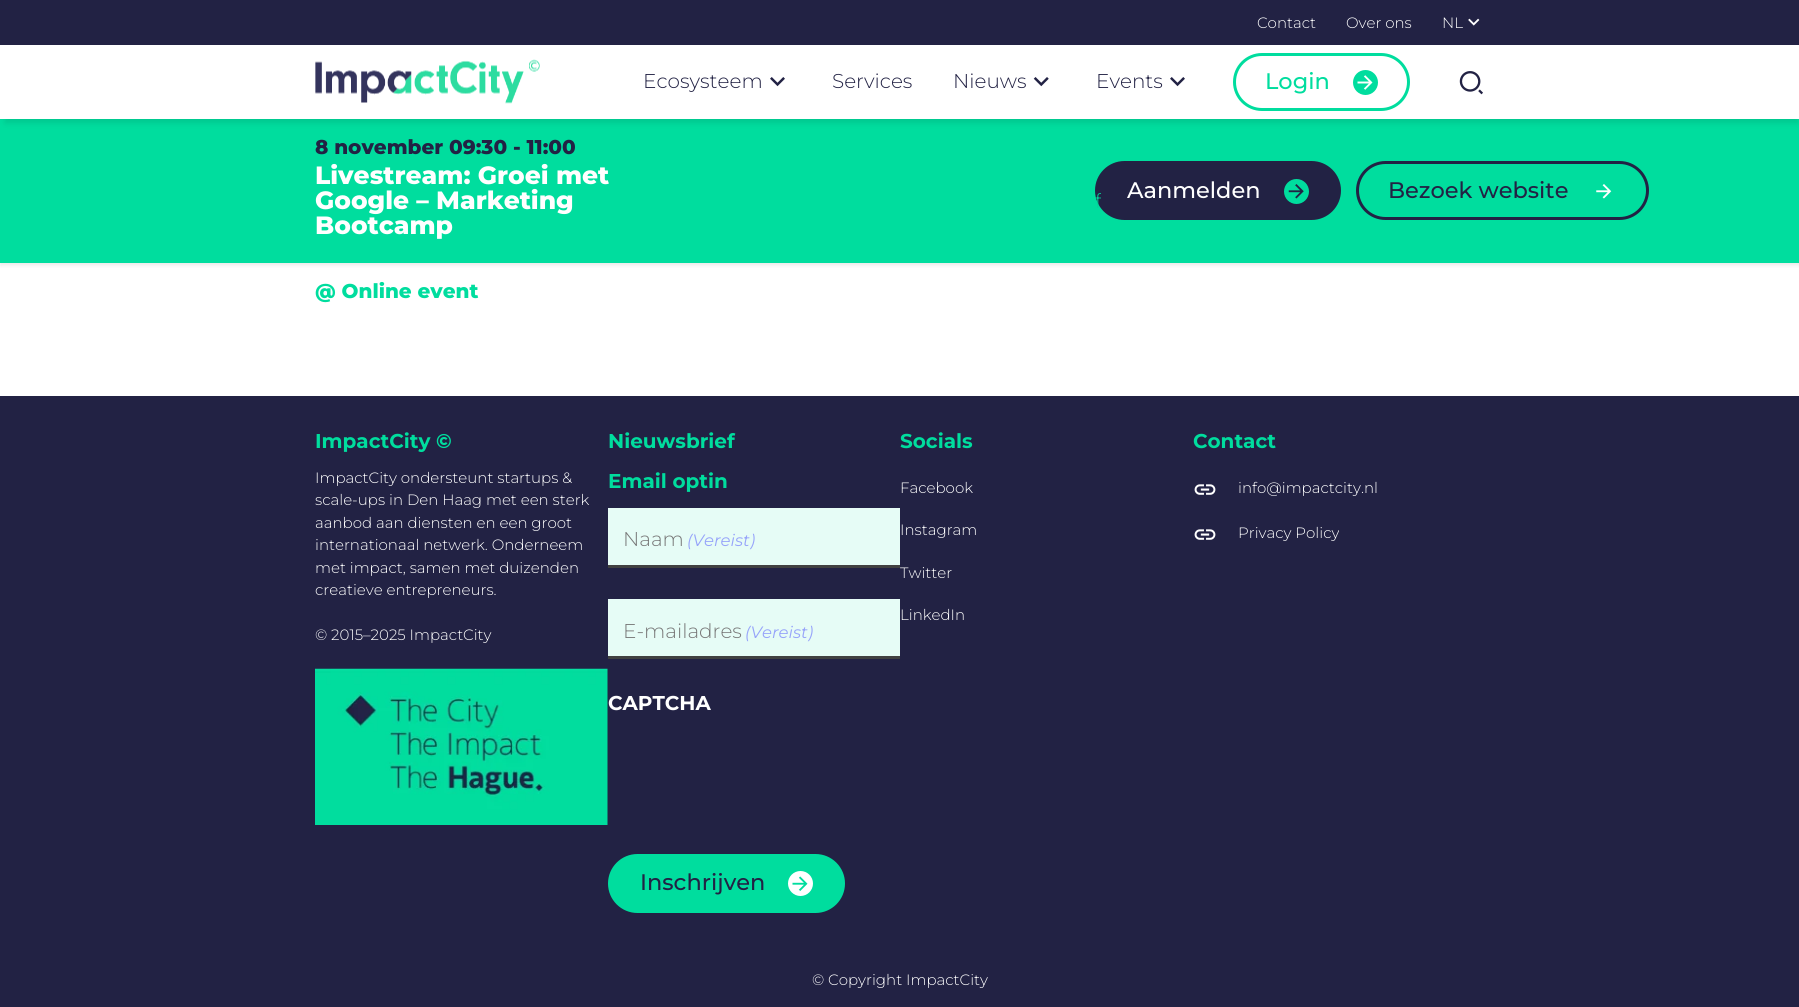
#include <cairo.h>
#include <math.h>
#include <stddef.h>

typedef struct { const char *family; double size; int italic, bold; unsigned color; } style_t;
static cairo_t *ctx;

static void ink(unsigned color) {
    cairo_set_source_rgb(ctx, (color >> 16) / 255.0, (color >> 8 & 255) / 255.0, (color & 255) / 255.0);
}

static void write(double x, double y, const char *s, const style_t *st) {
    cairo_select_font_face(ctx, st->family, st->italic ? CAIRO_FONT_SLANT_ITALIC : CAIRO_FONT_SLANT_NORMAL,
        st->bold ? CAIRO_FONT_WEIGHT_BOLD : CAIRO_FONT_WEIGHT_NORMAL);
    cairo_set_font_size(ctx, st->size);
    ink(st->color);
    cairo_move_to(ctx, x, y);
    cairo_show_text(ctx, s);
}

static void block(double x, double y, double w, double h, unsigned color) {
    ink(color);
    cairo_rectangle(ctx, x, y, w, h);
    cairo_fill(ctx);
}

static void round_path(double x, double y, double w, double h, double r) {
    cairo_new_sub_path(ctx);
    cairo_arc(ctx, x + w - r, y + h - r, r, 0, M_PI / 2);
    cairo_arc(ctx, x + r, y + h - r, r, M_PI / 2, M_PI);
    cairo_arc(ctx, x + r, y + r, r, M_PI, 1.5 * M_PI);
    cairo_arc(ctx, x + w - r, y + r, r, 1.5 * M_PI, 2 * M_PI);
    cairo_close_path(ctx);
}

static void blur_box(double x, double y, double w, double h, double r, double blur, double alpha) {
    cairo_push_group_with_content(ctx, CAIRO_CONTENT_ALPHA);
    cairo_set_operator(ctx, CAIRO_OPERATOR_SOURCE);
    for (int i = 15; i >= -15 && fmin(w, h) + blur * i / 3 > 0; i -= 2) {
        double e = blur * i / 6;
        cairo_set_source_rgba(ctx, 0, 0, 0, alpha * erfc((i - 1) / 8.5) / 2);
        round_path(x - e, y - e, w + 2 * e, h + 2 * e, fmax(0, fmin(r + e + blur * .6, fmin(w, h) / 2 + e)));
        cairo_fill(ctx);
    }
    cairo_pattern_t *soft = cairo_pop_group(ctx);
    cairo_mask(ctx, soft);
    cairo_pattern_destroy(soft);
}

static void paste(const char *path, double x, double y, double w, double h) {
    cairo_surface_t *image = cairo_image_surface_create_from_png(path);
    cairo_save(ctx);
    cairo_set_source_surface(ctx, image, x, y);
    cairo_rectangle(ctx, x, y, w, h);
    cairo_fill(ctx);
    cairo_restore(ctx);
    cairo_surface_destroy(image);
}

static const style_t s1 = {"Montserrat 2 Thin", 15, 0, 0, 0xffffff};
static const style_t s2 = {"Montserrat 2 Thin", 20, 0, 0, 0x222244};
static const style_t s3 = {"Montserrat 2 Thin", 20, 0, 0, 0x02d399};
static const style_t s4 = {"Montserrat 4 Thin", 22.5, 0, 0, 0x00dd9e};
static const style_t s5 = {"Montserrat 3 Thin", 20, 0, 0, 0x222244};
static const style_t s6 = {"Montserrat 3 Thin", 25, 0, 0, 0xffffff};
static const style_t s7 = {"Montserrat 4 Thin", 22.5, 0, 0, 0xffffff};
static const style_t s8 = {"Montserrat 4 Thin", 22.5, 0, 0, 0x222244};
static const style_t s9 = {"Montserrat 3 Thin", 20, 0, 0, 0x00dd9e};
static const style_t s10 = {"Montserrat Thin", 20, 0, 0, 0x00dd9e};
static const style_t s11 = {"Montserrat 2 Thin", 20, 0, 0, 0x787878};
static const style_t s12 = {"Montserrat Thin", 16.5, 1, 0, 0x97a4fa};
static const style_t s13 = {"Montserrat Thin", 20, 0, 0, 0xffffff};

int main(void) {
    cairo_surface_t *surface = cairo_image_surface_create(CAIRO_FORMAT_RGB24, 1799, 1007);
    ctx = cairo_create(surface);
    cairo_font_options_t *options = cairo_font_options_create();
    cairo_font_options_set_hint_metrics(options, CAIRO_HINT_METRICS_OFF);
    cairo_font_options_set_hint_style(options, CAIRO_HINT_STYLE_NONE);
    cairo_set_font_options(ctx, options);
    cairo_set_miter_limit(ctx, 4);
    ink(0xffffff);
    cairo_paint(ctx);
    ink(0x000000);
    blur_box(0, 121, 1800, 144, 0, 2.5, 0.1);
    block(0, 119, 1799, 144, 0x00dd9e);
    ink(0x000000);
    blur_box(5, 11, 1793, 112, 0, 3, 0.1);
    block(0, 45, 1799, 74, 0xffffff);
    block(0, 0, 1799, 45, 0x222244);
    write(1257, 28, "Contact", &s1);
    write(1346, 28, "Over ons", &s1);
    write(1442, 28, "NL", &s1);
    paste("pic1.png", 1468, 18, 12, 8);
    paste("pic2.png", 315, 59, 225, 45);
    write(643, 88, "Ecosysteem", &s2);
    paste("pic3.png", 770, 77, 15, 10);
    write(832, 88, "Services", &s2);
    write(953, 88, "Nieuws", &s2);
    paste("pic4.png", 1033, 77, 16, 10);
    round_path(1096.5, 162.5, 243, 56, 28);
    cairo_fill_preserve(ctx);
    cairo_set_line_width(ctx, 3);
    cairo_stroke(ctx);
    cairo_save(ctx);
    cairo_rectangle(ctx, 983, 175, 118, 55);
    cairo_clip(ctx);
    write(1095, 208, "f", &s3);
    cairo_restore(ctx);
    write(1096, 88, "Events", &s2);
    paste("pic3.png", 1170, 77, 15, 10);
    round_path(1234.5, 54.5, 174, 55, 27.5);
    ink(0x00dd9e);
    cairo_stroke(ctx);
    write(1265, 89, "Login", &s4);
    cairo_new_path(ctx);
    cairo_arc(ctx, 1365.5, 82.5, 12.5, 0, 2 * M_PI);
    cairo_fill(ctx);
    paste("pic5.png", 1357, 75, 16, 15);
    paste("pic6.png", 1459, 71, 24, 24);
    write(315, 154, "8 november 09:30 - 11:00", &s5);
    write(315, 184, "Livestream: Groei met", &s6);
    write(315, 209, "Google – Marketing", &s6);
    write(315, 234, "Bootcamp", &s6);
    write(1127, 198, "Aanmelden", &s7);
    ink(0x00dd9e);
    cairo_new_path(ctx);
    cairo_arc(ctx, 1296.5, 191.5, 12.5, 0, 2 * M_PI);
    cairo_fill(ctx);
    paste("pic7.png", 1288, 184, 16, 15);
    round_path(1357.5, 162.5, 290, 56, 28);
    ink(0x222244);
    cairo_stroke(ctx);
    write(1388, 198, "Bezoek website", &s8);
    paste("pic8.png", 1596, 184, 16, 15);
    write(315, 298, "@ Online event", &s9);
    block(0, 396, 1799, 611, 0x222244);
    write(315, 448, "ImpactCity ©", &s10);
    write(315, 483, "ImpactCity ondersteunt startups &", &s1);
    write(315, 505, "scale-ups in Den Haag met een sterk", &s1);
    write(315, 528, "aanbod aan diensten en een groot", &s1);
    write(315, 550, "internationaal netwerk. Onderneem", &s1);
    write(315, 573, "met impact, samen met duizenden", &s1);
    write(315, 595, "creatieve entrepreneurs.", &s1);
    write(315, 640, "© 2015–2025 ImpactCity", &s1);
    paste("pic9.png", 315, 668, 293, 157);
    write(608, 448, "Nieuwsbrief", &s10);
    write(608, 488, "Email optin", &s10);
    block(608, 565, 292, 3, 0x414141);
    block(608, 508, 292, 57, 0xe6fcf6);
    write(623, 546, "Naam", &s11);
    write(687, 546, "(Vereist)", &s12);
    block(608, 656, 292, 3, 0x414141);
    block(608, 599, 292, 57, 0xe6fcf6);
    write(623, 638, "E-mailadres", &s11);
    write(745, 638, "(Vereist)", &s12);
    write(608, 710, "CAPTCHA", &s13);
    ink(0x00dd9e);
    round_path(609.5, 855.5, 234, 56, 28);
    cairo_fill_preserve(ctx);
    cairo_stroke(ctx);
    write(640, 890, "Inschrijven", &s8);
    ink(0xffffff);
    cairo_new_path(ctx);
    cairo_arc(ctx, 800.5, 883.5, 12.5, 0, 2 * M_PI);
    cairo_fill(ctx);
    paste("pic10.png", 792, 876, 16, 15);
    write(900, 448, "Socials", &s10);
    write(900, 493, "Facebook", &s1);
    write(900, 535, "Instagram", &s1);
    write(900, 578, "Twitter", &s1);
    write(900, 620, "LinkedIn", &s1);
    write(1193, 448, "Contact", &s10);
    paste("pic11.png", 1194, 484, 22, 11);
    write(1238, 493, "info@impactcity.nl", &s1);
    paste("pic11.png", 1194, 529, 22, 11);
    write(1238, 538, "Privacy Policy", &s1);
    write(812, 985, "© Copyright ImpactCity", &s1);
    cairo_surface_write_to_png(surface, "screenshot.png");
    cairo_font_options_destroy(options);
    cairo_destroy(ctx);
    cairo_surface_destroy(surface);
    return 0;
}
